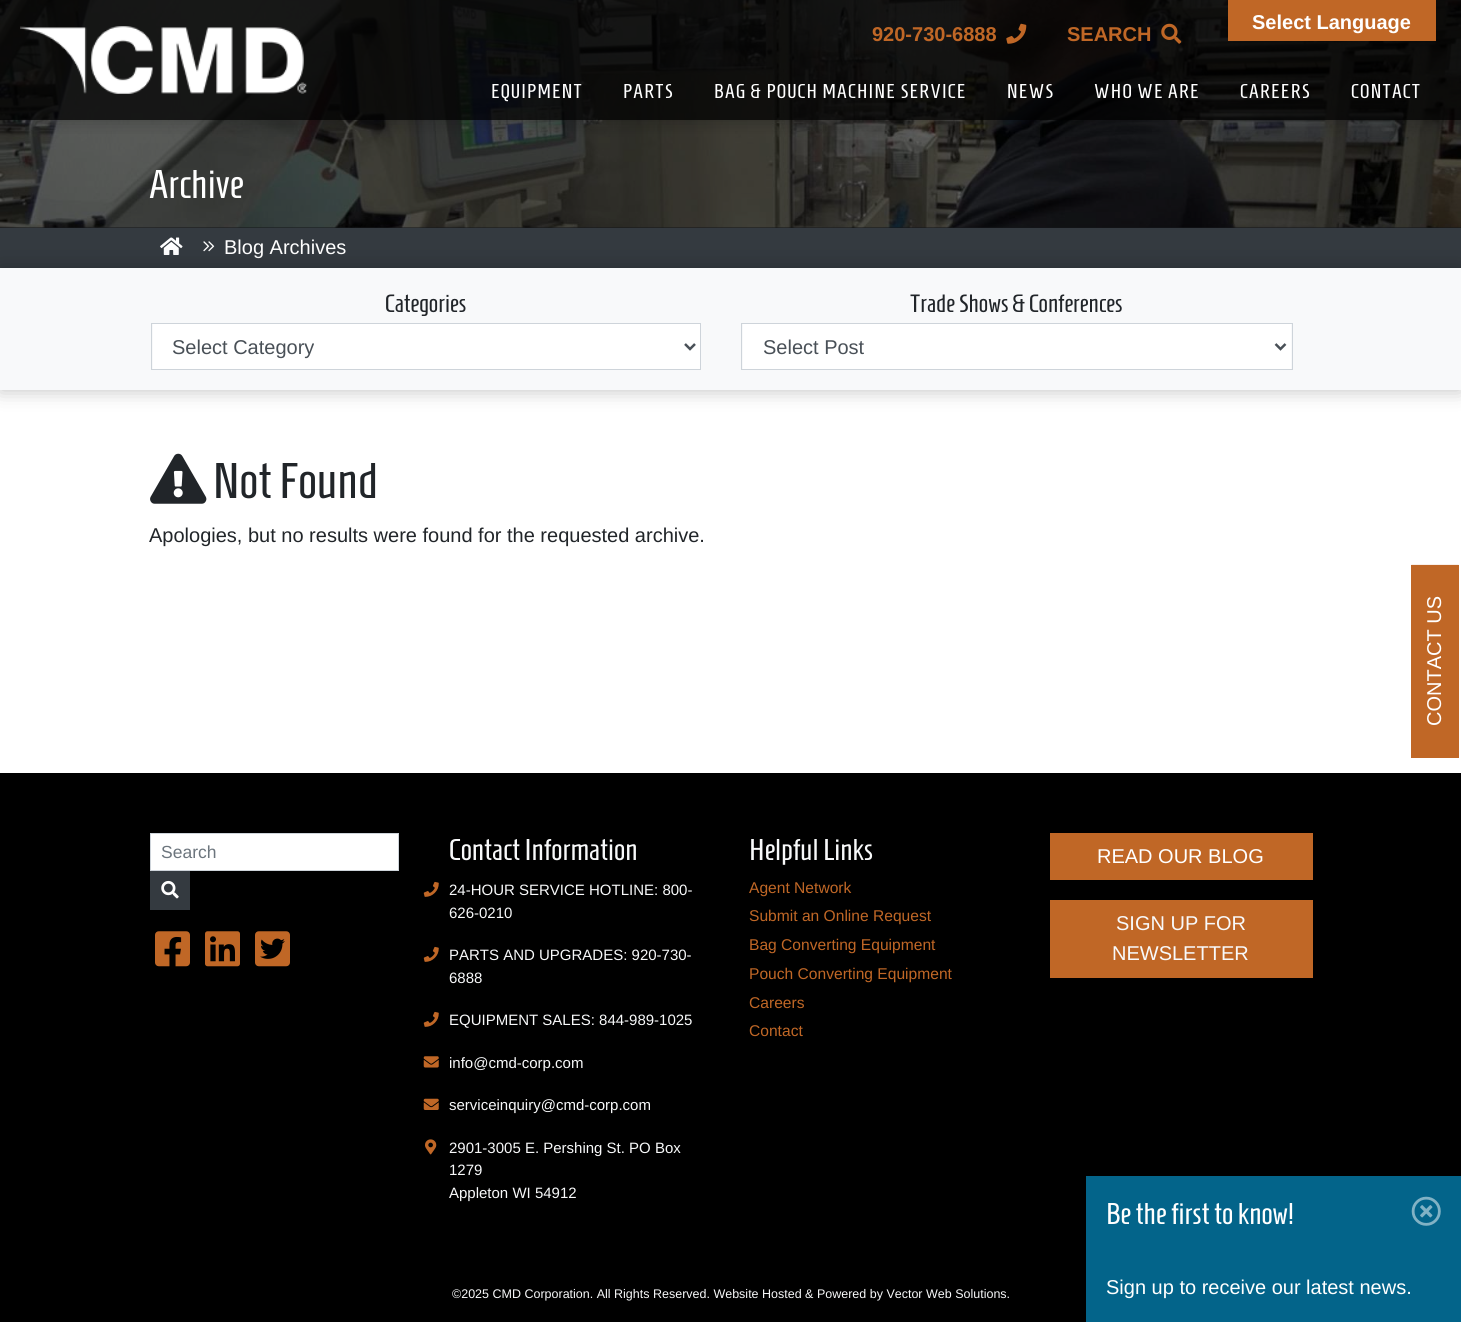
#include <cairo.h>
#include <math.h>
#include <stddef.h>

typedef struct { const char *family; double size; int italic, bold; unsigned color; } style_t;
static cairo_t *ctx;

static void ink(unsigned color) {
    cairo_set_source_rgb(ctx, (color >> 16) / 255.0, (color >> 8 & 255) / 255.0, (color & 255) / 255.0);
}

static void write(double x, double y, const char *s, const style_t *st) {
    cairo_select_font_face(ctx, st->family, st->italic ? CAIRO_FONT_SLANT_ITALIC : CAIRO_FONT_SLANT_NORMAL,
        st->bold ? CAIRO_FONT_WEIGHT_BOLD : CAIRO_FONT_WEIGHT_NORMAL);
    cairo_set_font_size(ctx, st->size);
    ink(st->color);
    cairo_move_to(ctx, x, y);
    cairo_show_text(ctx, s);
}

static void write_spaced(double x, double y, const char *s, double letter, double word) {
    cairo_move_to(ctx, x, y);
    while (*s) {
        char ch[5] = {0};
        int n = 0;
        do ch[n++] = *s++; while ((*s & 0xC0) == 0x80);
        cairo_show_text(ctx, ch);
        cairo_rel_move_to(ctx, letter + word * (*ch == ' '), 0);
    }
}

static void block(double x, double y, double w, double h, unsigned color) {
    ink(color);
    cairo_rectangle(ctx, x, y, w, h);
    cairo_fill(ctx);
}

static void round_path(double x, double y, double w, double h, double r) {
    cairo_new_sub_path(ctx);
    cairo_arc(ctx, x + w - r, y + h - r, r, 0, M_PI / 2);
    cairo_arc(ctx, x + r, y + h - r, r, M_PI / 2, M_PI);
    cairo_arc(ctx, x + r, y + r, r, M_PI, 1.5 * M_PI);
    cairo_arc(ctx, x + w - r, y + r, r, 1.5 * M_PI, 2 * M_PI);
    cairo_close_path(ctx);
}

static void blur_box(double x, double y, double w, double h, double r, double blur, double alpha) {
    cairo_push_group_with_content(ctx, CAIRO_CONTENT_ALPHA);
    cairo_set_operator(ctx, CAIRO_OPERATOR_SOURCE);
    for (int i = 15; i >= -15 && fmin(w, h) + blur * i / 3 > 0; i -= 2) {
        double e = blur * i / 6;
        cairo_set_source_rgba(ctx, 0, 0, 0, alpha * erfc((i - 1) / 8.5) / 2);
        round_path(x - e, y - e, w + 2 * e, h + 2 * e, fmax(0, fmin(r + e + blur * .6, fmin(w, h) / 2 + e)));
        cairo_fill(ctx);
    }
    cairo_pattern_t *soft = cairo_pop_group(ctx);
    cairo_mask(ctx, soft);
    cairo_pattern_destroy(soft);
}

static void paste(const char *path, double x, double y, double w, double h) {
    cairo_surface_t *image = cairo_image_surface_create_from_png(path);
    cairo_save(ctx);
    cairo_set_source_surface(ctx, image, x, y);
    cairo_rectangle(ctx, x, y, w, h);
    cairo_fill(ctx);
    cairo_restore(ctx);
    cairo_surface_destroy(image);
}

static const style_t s1 = {"Liberation Sans", 20, 0, 1, 0xffffff};
static const style_t s2 = {"Liberation Sans", 20, 0, 1, 0xc06726};
static const style_t s3 = {"Homenaje", 40, 0, 0, 0xffffff};
static const style_t s4 = {"Liberation Sans", 20, 0, 0, 0xffffff};
static const style_t s5 = {"Homenaje", 25, 0, 0, 0x212529};
static const style_t s6 = {"Liberation Sans", 20, 0, 0, 0x495057};
static const style_t s7 = {"Homenaje", 50, 0, 0, 0x212529};
static const style_t s8 = {"Liberation Sans", 20, 0, 0, 0x212529};
static const style_t s9 = {"Liberation Sans", 17.5, 0, 0, 0x6c757d};
static const style_t s10 = {"Homenaje", 30, 0, 0, 0xf8f9fa};
static const style_t s11 = {"Liberation Sans", 15, 0, 0, 0xf8f9fa};
static const style_t s12 = {"Liberation Sans", 15.6, 0, 0, 0xc06726};
static const style_t s13 = {"Liberation Sans", 20, 0, 0, 0xf8f9fa};
static const style_t s14 = {"Liberation Sans", 12.5, 0, 0, 0xf8f9fa};
static const style_t s15 = {"Homenaje", 30, 0, 0, 0xffffff};

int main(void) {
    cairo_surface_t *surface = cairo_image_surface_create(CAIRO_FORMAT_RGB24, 1461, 1322);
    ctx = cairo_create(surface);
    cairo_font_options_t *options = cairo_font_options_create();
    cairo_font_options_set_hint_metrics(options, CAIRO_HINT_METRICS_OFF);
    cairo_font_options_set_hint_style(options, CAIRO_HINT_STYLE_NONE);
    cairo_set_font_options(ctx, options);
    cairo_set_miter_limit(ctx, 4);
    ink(0xffffff);
    cairo_paint(ctx);
    block(0, 227, 1461, 1, 0x15171a);
    paste("pic4.png", 0, 0, 1461, 228);
    cairo_save(ctx);
    cairo_rectangle(ctx, 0, 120, 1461, 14);
    cairo_clip(ctx);
    ink(0x000000);
    blur_box(0, 0, 1461, 120, 0, 10, 0.25);
    cairo_restore(ctx);
    cairo_set_source_rgba(ctx, 0, 0, 0, 0.75);
    cairo_rectangle(ctx, 0, 0, 1461, 120);
    cairo_fill(ctx);
    block(1228, 0, 208, 41, 0xc06726);
    write(1252, 29, "Select Language", &s1);
    paste("pic1.png", 20, 26, 287, 68);
    write(872, 41, "920-730-6888", &s2);
    paste("pic2.png", 1006, 23, 21, 21);
    write(1067, 41, "SEARCH", &s2);
    paste("pic3.png", 1161, 23, 21, 21);
    cairo_select_font_face(ctx, "Homenaje", CAIRO_FONT_SLANT_NORMAL, CAIRO_FONT_WEIGHT_NORMAL);
    ink(0xffffff);
    write_spaced(491, 98, "EQUIPMENT", 1.25, 0);
    write_spaced(623, 98, "PARTS", 1.25, 0);
    write_spaced(714, 98, "BAG & POUCH MACHINE SERVICE", 1.25, 0);
    write_spaced(1007, 98, "NEWS", 1.25, 0);
    write_spaced(1094, 98, "WHO WE ARE", 1.25, 0);
    write_spaced(1240, 98, "CAREERS", 1.25, 0);
    write_spaced(1351, 98, "CONTACT", 1.25, 0);
    write(149, 198, "Archive", &s3);
    block(0, 228, 1461, 40, 0x343a40);
    paste("pic5.png", 160, 237, 23, 18);
    paste("pic6.png", 203, 241, 12, 11);
    write(224, 254, "Blog Archives", &s4);
    ink(0x000000);
    blur_box(0, 268, 1461, 122, 0, 10, 0.25);
    block(0, 268, 1461, 122, 0xf8f9fa);
    write(385, 312, "Categories", &s5);
    block(153, 324, 547, 45, 0xffffff);
    cairo_rectangle(ctx, 151.5, 323.5, 549, 46);
    ink(0xced4da);
    cairo_set_line_width(ctx, 1);
    cairo_stroke(ctx);
    cairo_new_path(ctx);
    cairo_move_to(ctx, 685, 344);
    cairo_line_to(ctx, 690, 349);
    cairo_line_to(ctx, 695, 344);
    ink(0x495057);
    cairo_set_line_width(ctx, 2.5);
    cairo_stroke(ctx);
    write(172, 354, "Select Category", &s6);
    write(910, 312, "Trade Shows & Conferences", &s5);
    block(743, 324, 548, 45, 0xffffff);
    cairo_rectangle(ctx, 741.5, 323.5, 551, 46);
    ink(0xced4da);
    cairo_set_line_width(ctx, 1);
    cairo_stroke(ctx);
    cairo_new_path(ctx);
    cairo_move_to(ctx, 1275.5, 344);
    cairo_line_to(ctx, 1280.5, 349);
    cairo_line_to(ctx, 1285.5, 344);
    ink(0x495057);
    cairo_set_line_width(ctx, 2.5);
    cairo_stroke(ctx);
    write(763, 354, "Select Post", &s6);
    paste("pic7.png", 150, 453, 57, 51);
    write(213, 498, "Not Found", &s7);
    write(149, 542, "Apologies, but no results were found for the requested archive.", &s8);
    block(1411, 565, 48, 193, 0xc06726);
    cairo_new_path(ctx);
    cairo_move_to(ctx, 1412, 757);
    cairo_line_to(ctx, 1412, 565.5);
    cairo_line_to(ctx, 1458, 565.5);
    cairo_line_to(ctx, 1458, 757);
    cairo_close_path(ctx);
    cairo_set_line_width(ctx, 1.2);
    cairo_stroke(ctx);
    cairo_save(ctx);
    cairo_translate(ctx, 1441, 726);
    cairo_rotate(ctx, -90 * M_PI / 180);
    write(0, 0, "CONTACT US", &s4);
    cairo_restore(ctx);
    block(0, 773, 1461, 549, 0x000000);
    ink(0xffffff);
    cairo_rectangle(ctx, 150.5, 833.5, 248, 37);
    cairo_fill_preserve(ctx);
    ink(0xced4da);
    cairo_set_line_width(ctx, 1);
    cairo_stroke(ctx);
    write(161, 858, "Search", &s9);
    block(150, 871, 40, 39, 0x343a40);
    paste("pic8.png", 161, 880, 18, 19);
    paste("pic9.png", 155, 931, 35, 36);
    paste("pic10.png", 205, 931, 35, 36);
    paste("pic11.png", 255, 931, 35, 36);
    write(449, 860, "Contact Information", &s10);
    paste("pic12.png", 423, 881, 16, 16);
    write(449, 895, "24-HOUR SERVICE HOTLINE: 800-", &s11);
    write(449, 918, "626-0210", &s11);
    paste("pic12.png", 423, 946, 16, 16);
    write(449, 960, "PARTS AND UPGRADES: 920-730-", &s11);
    write(449, 983, "6888", &s11);
    paste("pic12.png", 423, 1011, 16, 16);
    write(449, 1025, "EQUIPMENT SALES: 844-989-1025", &s11);
    paste("pic13.png", 423, 1056, 16, 12);
    write(449, 1068, "info@cmd-corp.com", &s11);
    paste("pic14.png", 423, 1098, 16, 12);
    write(449, 1110, "serviceinquiry@cmd-corp.com", &s11);
    paste("pic15.png", 425, 1139, 12, 16);
    write(449, 1153, "2901-3005 E. Pershing St. PO Box", &s11);
    write(449, 1175, "1279", &s11);
    write(449, 1198, "Appleton WI 54912", &s11);
    write(749, 860, "Helpful Links", &s10);
    write(749, 893, "Agent Network", &s12);
    write(749, 921, "Submit an Online Request", &s12);
    write(749, 950, "Bag Converting Equipment", &s12);
    write(749, 979, "Pouch Converting Equipment", &s12);
    write(749, 1008, "Careers", &s12);
    write(749, 1036, "Contact", &s12);
    block(1050, 833, 263, 47, 0xc06726);
    write(1097, 863, "READ OUR BLOG", &s4);
    block(1050, 900, 263, 78, 0xc06726);
    write(1116, 930, "SIGN UP FOR", &s13);
    write(1112, 960, "NEWSLETTER", &s13);
    write(452, 1298, "©2025 CMD Corporation. All Rights Reserved. Website Hosted & Powered by Vector Web Solutions.", &s14);
    block(1086, 1176, 375, 146, 0x03648a);
    write(1106, 1224, "Be the first to know!", &s15);
    write(1106, 1294, "Sign up to receive our latest news.", &s4);
    paste("pic16.png", 1411, 1196, 30, 30);
    cairo_surface_write_to_png(surface, "screenshot.png");
    cairo_font_options_destroy(options);
    cairo_destroy(ctx);
    cairo_surface_destroy(surface);
    return 0;
}
